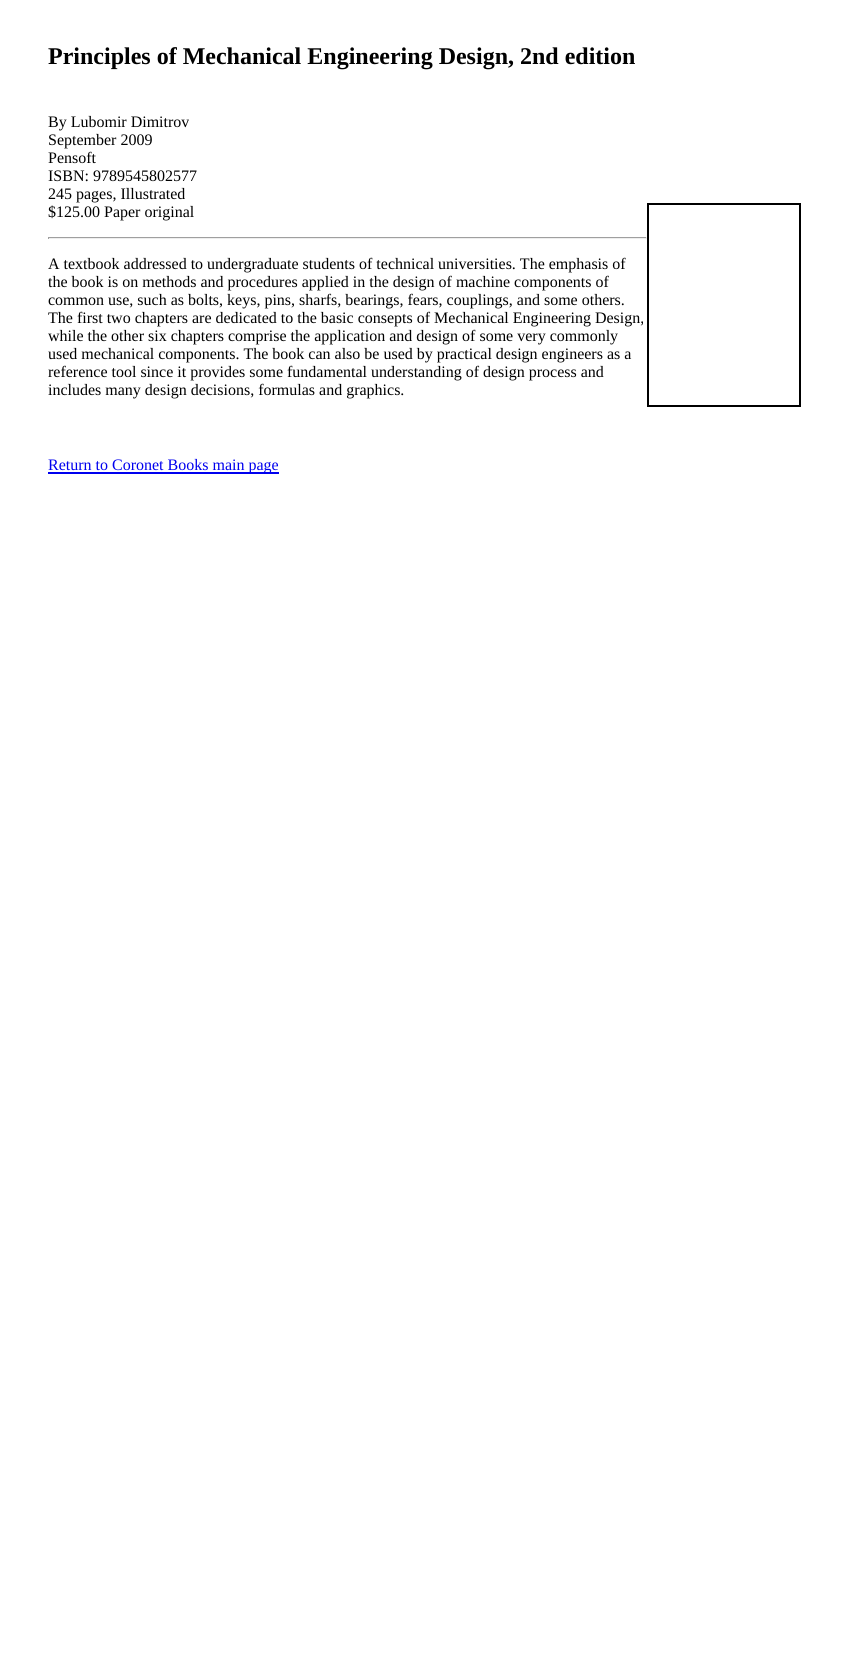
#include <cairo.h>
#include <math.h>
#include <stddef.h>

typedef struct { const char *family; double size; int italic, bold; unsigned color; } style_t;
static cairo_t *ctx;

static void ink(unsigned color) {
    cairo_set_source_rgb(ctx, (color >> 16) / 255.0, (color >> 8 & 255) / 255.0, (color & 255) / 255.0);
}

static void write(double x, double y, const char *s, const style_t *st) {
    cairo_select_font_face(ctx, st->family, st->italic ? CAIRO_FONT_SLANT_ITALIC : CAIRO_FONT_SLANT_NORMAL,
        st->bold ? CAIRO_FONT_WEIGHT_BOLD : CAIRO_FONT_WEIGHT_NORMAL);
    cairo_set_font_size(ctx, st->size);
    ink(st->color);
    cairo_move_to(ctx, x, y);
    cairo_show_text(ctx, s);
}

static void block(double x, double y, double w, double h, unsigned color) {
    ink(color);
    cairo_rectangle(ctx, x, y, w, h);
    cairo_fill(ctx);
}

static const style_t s1 = {"Liberation Serif", 24, 0, 1, 0x000000};
static const style_t s2 = {"Liberation Serif", 16, 0, 0, 0x000000};
static const style_t s3 = {"Liberation Serif", 16, 0, 0, 0x0000ee};

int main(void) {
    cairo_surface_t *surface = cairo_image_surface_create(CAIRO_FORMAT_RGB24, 849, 1676);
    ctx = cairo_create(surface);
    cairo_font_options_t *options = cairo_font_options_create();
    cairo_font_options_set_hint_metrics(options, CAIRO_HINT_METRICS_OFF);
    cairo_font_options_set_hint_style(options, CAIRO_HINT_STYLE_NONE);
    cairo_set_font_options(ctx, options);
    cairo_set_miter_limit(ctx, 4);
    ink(0xffffff);
    cairo_paint(ctx);
    write(48, 64, "Principles of Mechanical Engineering Design, 2nd edition", &s1);
    write(48, 127, "By Lubomir Dimitrov", &s2);
    write(48, 145, "September 2009", &s2);
    write(48, 163, "Pensoft", &s2);
    write(48, 181, "ISBN: 9789545802577", &s2);
    write(48, 199, "245 pages, Illustrated", &s2);
    write(48, 217, "$125.00 Paper original", &s2);
    cairo_rectangle(ctx, 648, 204, 152, 202);
    cairo_stroke(ctx);
    block(48, 237, 599, 1, 0x9f9f9f);
    block(646, 237, 1, 2, 0xeeeeee);
    block(48, 238, 599, 1, 0xeeeeee);
    block(48, 237, 1, 2, 0x9f9f9f);
    write(48, 269, "A textbook addressed to undergraduate students of technical universities. The emphasis of", &s2);
    write(48, 287, "the book is on methods and procedures applied in the design of machine components of", &s2);
    write(48, 305, "common use, such as bolts, keys, pins, sharfs, bearings, fears, couplings, and some others.", &s2);
    write(48, 323, "The first two chapters are dedicated to the basic consepts of Mechanical Engineering Design,", &s2);
    write(48, 341, "while the other six chapters comprise the application and design of some very commonly", &s2);
    write(48, 359, "used mechanical components. The book can also be used by practical design engineers as a", &s2);
    write(48, 377, "reference tool since it provides some fundamental understanding of design process and", &s2);
    write(48, 395, "includes many design decisions, formulas and graphics.", &s2);
    block(48, 472, 231, 2, 0x0000ee);
    write(48, 470, "Return to Coronet Books main page", &s3);
    cairo_surface_write_to_png(surface, "screenshot.png");
    cairo_font_options_destroy(options);
    cairo_destroy(ctx);
    cairo_surface_destroy(surface);
    return 0;
}
